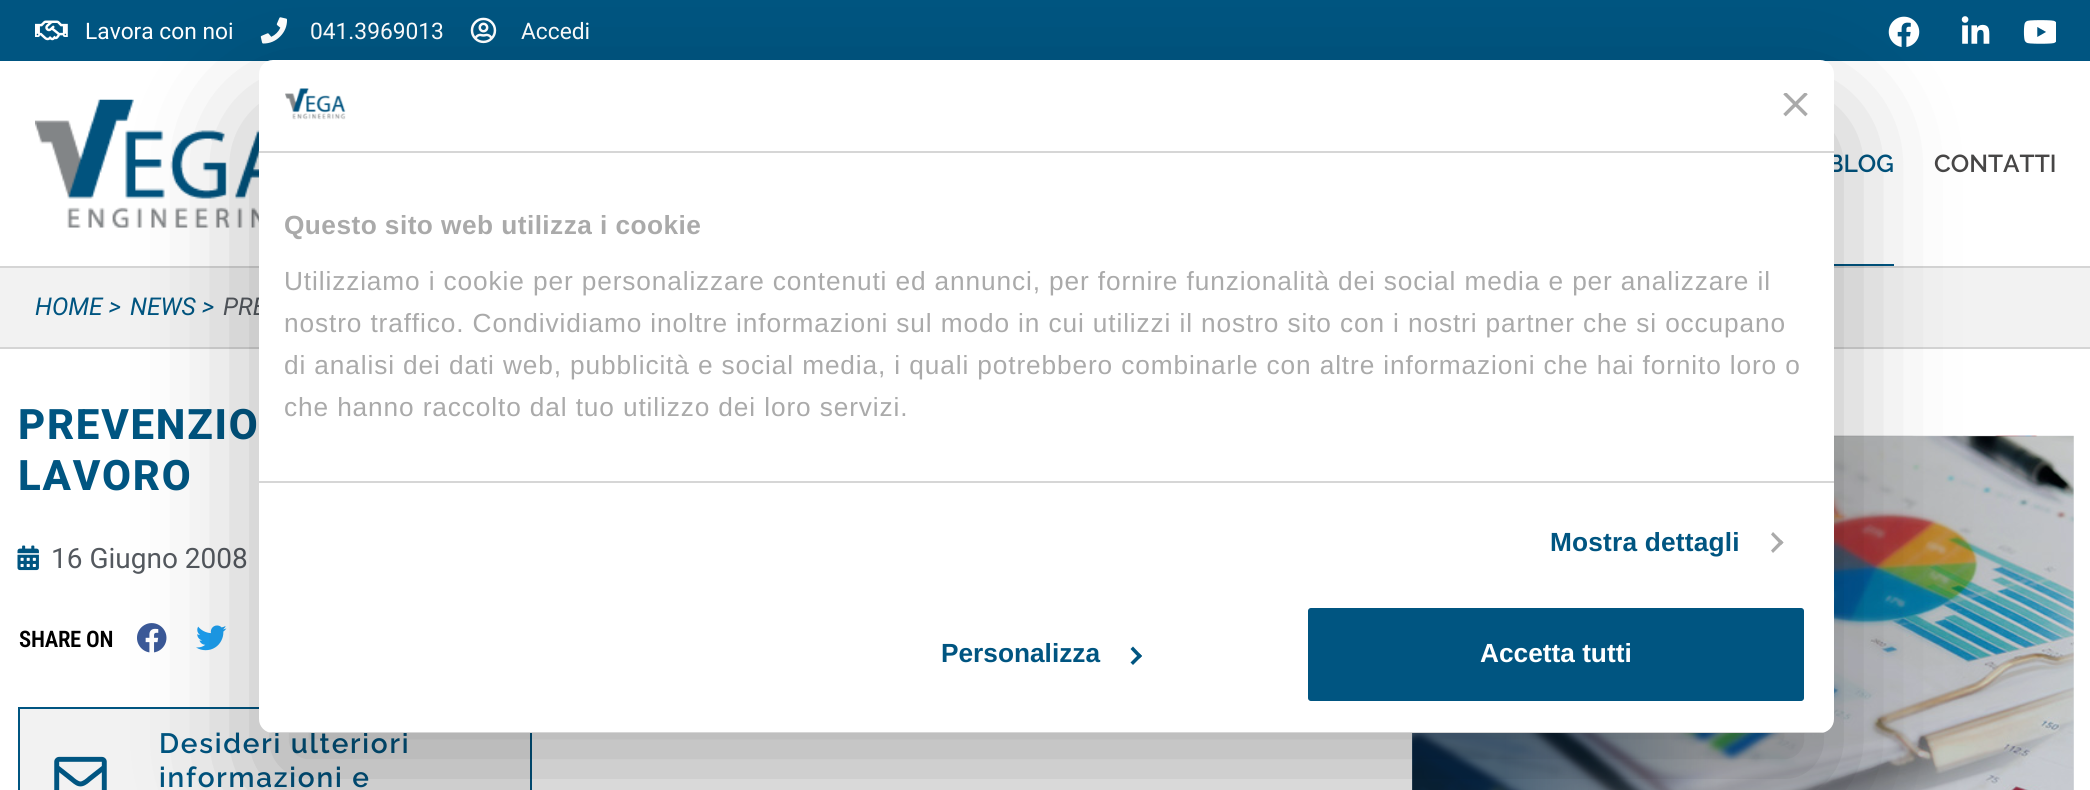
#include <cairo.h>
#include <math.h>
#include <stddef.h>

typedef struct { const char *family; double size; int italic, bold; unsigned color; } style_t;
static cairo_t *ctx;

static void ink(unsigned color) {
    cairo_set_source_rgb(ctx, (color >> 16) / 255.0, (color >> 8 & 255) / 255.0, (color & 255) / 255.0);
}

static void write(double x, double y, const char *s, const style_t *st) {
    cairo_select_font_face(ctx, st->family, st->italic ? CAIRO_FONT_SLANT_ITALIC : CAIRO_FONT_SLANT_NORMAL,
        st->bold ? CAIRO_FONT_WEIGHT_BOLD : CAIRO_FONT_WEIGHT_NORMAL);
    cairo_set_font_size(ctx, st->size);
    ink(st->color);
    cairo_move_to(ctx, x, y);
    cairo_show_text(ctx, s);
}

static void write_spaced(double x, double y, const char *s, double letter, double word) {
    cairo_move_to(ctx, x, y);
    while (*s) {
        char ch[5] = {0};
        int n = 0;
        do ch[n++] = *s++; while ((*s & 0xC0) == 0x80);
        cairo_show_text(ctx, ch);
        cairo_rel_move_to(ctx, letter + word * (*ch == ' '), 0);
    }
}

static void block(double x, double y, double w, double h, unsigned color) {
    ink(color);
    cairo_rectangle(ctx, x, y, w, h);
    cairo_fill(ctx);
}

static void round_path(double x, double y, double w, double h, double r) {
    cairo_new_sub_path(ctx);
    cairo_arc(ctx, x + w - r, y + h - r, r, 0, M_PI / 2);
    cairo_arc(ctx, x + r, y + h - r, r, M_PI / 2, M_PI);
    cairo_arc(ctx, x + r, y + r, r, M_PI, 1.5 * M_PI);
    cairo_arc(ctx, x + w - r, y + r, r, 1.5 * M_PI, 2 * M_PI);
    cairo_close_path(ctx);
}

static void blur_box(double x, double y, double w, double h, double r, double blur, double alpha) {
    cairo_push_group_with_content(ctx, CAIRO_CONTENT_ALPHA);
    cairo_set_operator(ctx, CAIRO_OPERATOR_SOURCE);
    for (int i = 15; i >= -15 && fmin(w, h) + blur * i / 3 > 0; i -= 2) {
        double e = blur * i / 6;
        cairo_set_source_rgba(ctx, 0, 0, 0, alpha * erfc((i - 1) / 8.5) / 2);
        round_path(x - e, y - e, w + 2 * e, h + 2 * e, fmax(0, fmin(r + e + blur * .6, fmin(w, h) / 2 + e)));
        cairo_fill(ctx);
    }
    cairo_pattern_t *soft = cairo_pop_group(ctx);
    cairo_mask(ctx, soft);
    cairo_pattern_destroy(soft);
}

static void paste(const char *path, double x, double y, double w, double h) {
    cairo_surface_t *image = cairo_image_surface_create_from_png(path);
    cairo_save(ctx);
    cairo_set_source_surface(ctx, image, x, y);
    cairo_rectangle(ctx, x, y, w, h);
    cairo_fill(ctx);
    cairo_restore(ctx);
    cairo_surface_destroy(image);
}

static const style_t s1 = {"Roboto", 22.75, 0, 0, 0xffffff};
static const style_t s2 = {"Raleway SemiBold", 24.5, 0, 0, 0x005581};
static const style_t s3 = {"Raleway SemiBold", 24.5, 0, 0, 0x474646};
static const style_t s4 = {"Roboto", 24.5, 1, 0, 0x005581};
static const style_t s5 = {"Roboto", 24.5, 1, 0, 0x54595f};
static const style_t s6 = {"Roboto", 28, 0, 0, 0x54595f};
static const style_t s7 = {"Liberation Sans", 26.25, 0, 1, 0x005581};
static const style_t s8 = {"Liberation Sans", 26.25, 0, 1, 0xffffff};

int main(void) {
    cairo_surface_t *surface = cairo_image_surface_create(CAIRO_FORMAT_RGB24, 2090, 790);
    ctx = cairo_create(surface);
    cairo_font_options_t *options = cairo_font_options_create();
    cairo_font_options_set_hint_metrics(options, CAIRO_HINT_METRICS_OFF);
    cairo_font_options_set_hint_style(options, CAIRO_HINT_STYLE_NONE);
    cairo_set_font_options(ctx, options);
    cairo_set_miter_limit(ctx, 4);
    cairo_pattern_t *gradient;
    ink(0xffffff);
    cairo_paint(ctx);
    block(0, 0, 2090, 61, 0x005581);
    paste("pic1.png", 35, 20, 33, 21);
    write(85, 39, "Lavora con noi", &s1);
    paste("pic2.png", 260, 17, 27, 27);
    write(310, 39, "041.3969013", &s1);
    paste("pic3.png", 470, 17, 27, 27);
    write(521, 39, "Accedi", &s1);
    paste("pic4.png", 1888, 16, 32, 31);
    paste("pic5.png", 1961, 16, 29, 28);
    paste("pic6.png", 2023, 20, 33, 24);
    block(0, 266, 2090, 2, 0xd5d5d5);
    paste("pic7.png", 35, 99, 224, 129);
    block(1827, 264, 67, 2, 0x005581);
    write(1827, 172, "BLOG", &s2);
    write(1934, 172, "CONTATTI", &s3);
    block(0, 268, 2090, 79, 0xf2f2f2);
    block(0, 347, 2090, 2, 0xd5d5d5);
    write(35, 315, "HOME >", &s4);
    write(130, 315, "NEWS >", &s4);
    write(223, 315, "PRE", &s5);
    cairo_select_font_face(ctx, "Roboto ExtraBold", CAIRO_FONT_SLANT_NORMAL, CAIRO_FONT_WEIGHT_NORMAL);
    cairo_set_font_size(ctx, 42);
    ink(0x005581);
    write_spaced(18, 439, "PREVENZIO", 1.75, 0);
    write_spaced(18, 490, "LAVORO", 1.75, 0);
    paste("pic8.png", 17, 545, 22, 26);
    write(51, 568, "16 Giugno 2008", &s6);
    cairo_select_font_face(ctx, "Roboto Condensed SemiBold", CAIRO_FONT_SLANT_NORMAL, CAIRO_FONT_WEIGHT_NORMAL);
    cairo_set_font_size(ctx, 22.75);
    ink(0x000000);
    write_spaced(19, 647, "SHARE ON", -0.25, 0);
    paste("pic9.png", 137, 623, 30, 30);
    paste("pic10.png", 196, 625, 31, 26);
    ink(0xf2f2f2);
    cairo_rectangle(ctx, 19, 708, 512, 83);
    cairo_fill_preserve(ctx);
    ink(0x005581);
    cairo_stroke(ctx);
    paste("pic11.png", 54, 756, 53, 34);
    cairo_select_font_face(ctx, "Raleway SemiBold", CAIRO_FONT_SLANT_NORMAL, CAIRO_FONT_WEIGHT_NORMAL);
    cairo_set_font_size(ctx, 28);
    write_spaced(159, 753, "Desideri ulteriori", 1.75, 0);
    write_spaced(159, 787, "informazioni e", 1.75, 0);
    paste("pic12.png", 1412, 435, 662, 355);
    gradient = cairo_pattern_create_linear(1412, 620, 2074, 620);
    cairo_pattern_add_color_stop_rgba(gradient, 0.14, 0, 0.204, 0.357, 0.53);
    cairo_pattern_add_color_stop_rgba(gradient, 0.46, 0, 0.204, 0.357, 0.04);
    cairo_set_source(ctx, gradient);
    cairo_pattern_destroy(gradient);
    cairo_rectangle(ctx, 1412, 436, 662, 354);
    cairo_fill(ctx);
    ink(0x000000);
    blur_box(259, 116, 1575, 673, 14, 59.5, 0.3);
    ink(0xffffff);
    round_path(259, 60, 1575, 673, 14);
    cairo_fill(ctx);
    block(259, 151, 1575, 2, 0xd6d6d6);
    paste("pic13.png", 285, 88, 61, 32);
    paste("pic14.png", 1783, 93, 25, 24);
    block(259, 481, 1575, 2, 0xd6d6d6);
    cairo_select_font_face(ctx, "Liberation Sans", CAIRO_FONT_SLANT_NORMAL, CAIRO_FONT_WEIGHT_BOLD);
    cairo_set_font_size(ctx, 26.25);
    ink(0xaaaaaa);
    write_spaced(284, 234, "Questo sito web utilizza i cookie", 0.45, 0);
    cairo_select_font_face(ctx, "Liberation Sans", CAIRO_FONT_SLANT_NORMAL, CAIRO_FONT_WEIGHT_NORMAL);
    write_spaced(284, 290, "Utilizziamo i cookie per personalizzare contenuti ed annunci, per fornire funzionalità dei social media e per analizzare il", 0.88, 0);
    write_spaced(284, 332, "nostro traffico. Condividiamo inoltre informazioni sul modo in cui utilizzi il nostro sito con i nostri partner che si occupano", 0.88, 0);
    write_spaced(284, 374, "di analisi dei dati web, pubblicità e social media, i quali potrebbero combinarle con altre informazioni che hai fornito loro o", 0.88, 0);
    write_spaced(284, 416, "che hanno raccolto dal tuo utilizzo dei loro servizi.", 0.88, 0);
    cairo_select_font_face(ctx, "Liberation Sans", CAIRO_FONT_SLANT_NORMAL, CAIRO_FONT_WEIGHT_BOLD);
    ink(0x005581);
    write_spaced(1550, 551, "Mostra dettagli", 0.2, 0);
    ink(0xaaaaaa);
    cairo_new_path(ctx);
    cairo_move_to(ctx, 1773, 532);
    cairo_line_to(ctx, 1783.5, 542.5);
    cairo_line_to(ctx, 1781, 545);
    cairo_line_to(ctx, 1771, 534.5);
    cairo_close_path(ctx);
    cairo_fill(ctx);
    cairo_new_path(ctx);
    cairo_move_to(ctx, 1781, 540);
    cairo_line_to(ctx, 1783.5, 542.5);
    cairo_line_to(ctx, 1773, 553);
    cairo_line_to(ctx, 1771, 550.5);
    cairo_close_path(ctx);
    cairo_fill(ctx);
    cairo_save(ctx);
    round_path(259, 60, 1575, 673, 14);
    cairo_clip(ctx);
    block(268, 732, 1557, 1, 0xd6d6d6);
    cairo_restore(ctx);
    write(941, 662, "Personalizza", &s7);
    cairo_new_path(ctx);
    cairo_move_to(ctx, 1133, 646.5);
    cairo_line_to(ctx, 1142, 656);
    cairo_line_to(ctx, 1139.5, 658.5);
    cairo_line_to(ctx, 1130.5, 649);
    cairo_close_path(ctx);
    cairo_fill(ctx);
    cairo_new_path(ctx);
    cairo_move_to(ctx, 1139.5, 653.5);
    cairo_line_to(ctx, 1142, 656);
    cairo_line_to(ctx, 1133, 665);
    cairo_line_to(ctx, 1130.5, 662.5);
    cairo_close_path(ctx);
    cairo_fill(ctx);
    round_path(1306, 606, 500, 97, 5);
    cairo_fill_preserve(ctx);
    ink(0xffffff);
    cairo_set_line_width(ctx, 4);
    cairo_stroke(ctx);
    write(1480, 662, "Accetta tutti", &s8);
    cairo_surface_write_to_png(surface, "screenshot.png");
    cairo_font_options_destroy(options);
    cairo_destroy(ctx);
    cairo_surface_destroy(surface);
    return 0;
}
